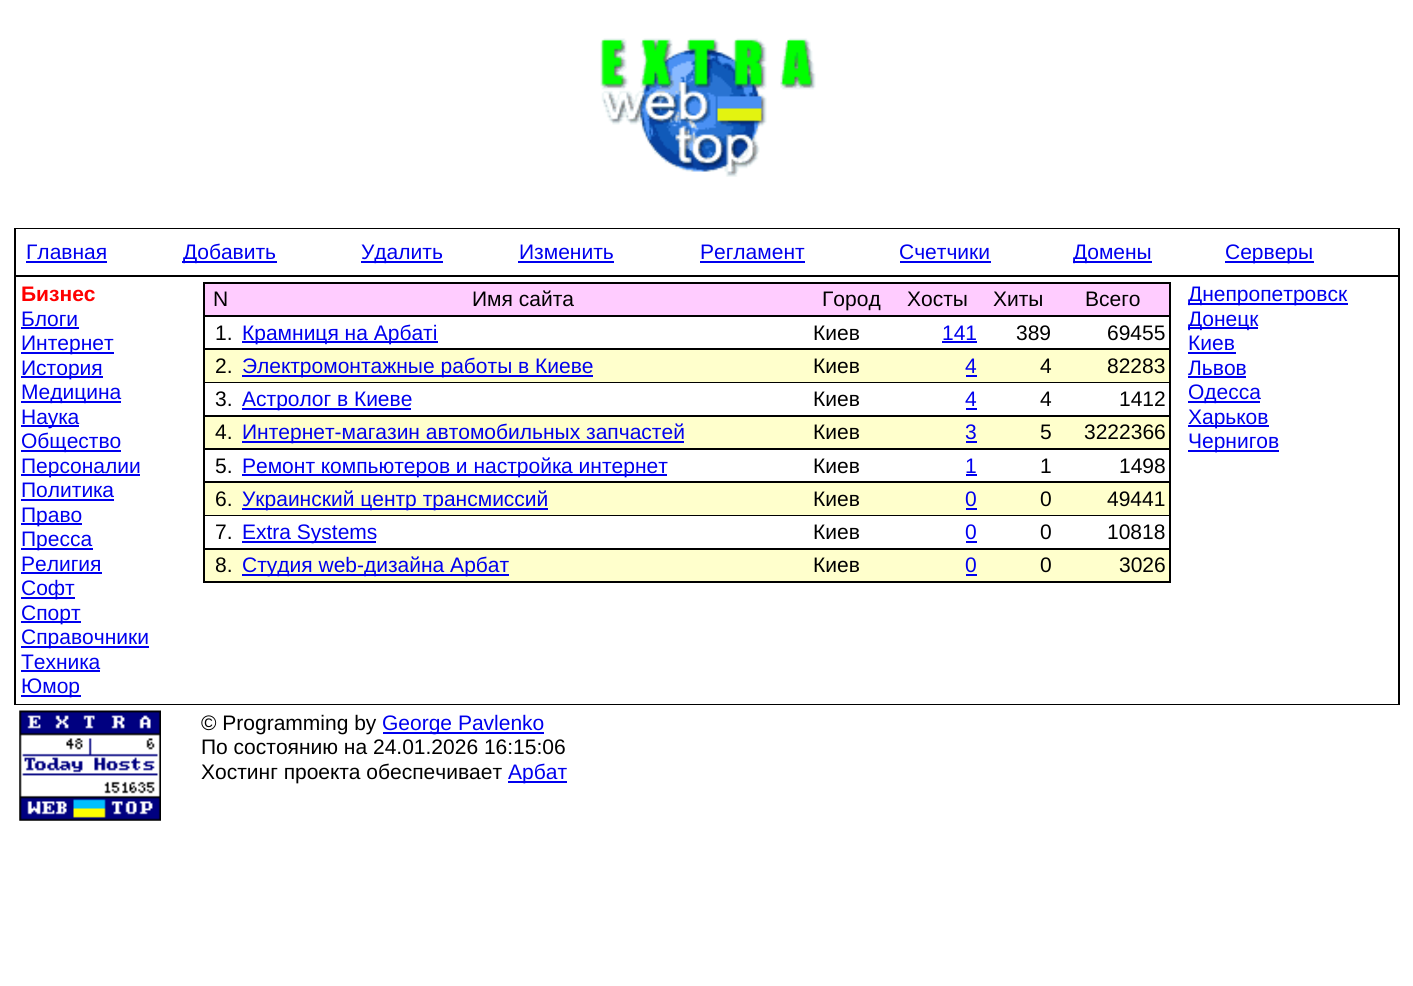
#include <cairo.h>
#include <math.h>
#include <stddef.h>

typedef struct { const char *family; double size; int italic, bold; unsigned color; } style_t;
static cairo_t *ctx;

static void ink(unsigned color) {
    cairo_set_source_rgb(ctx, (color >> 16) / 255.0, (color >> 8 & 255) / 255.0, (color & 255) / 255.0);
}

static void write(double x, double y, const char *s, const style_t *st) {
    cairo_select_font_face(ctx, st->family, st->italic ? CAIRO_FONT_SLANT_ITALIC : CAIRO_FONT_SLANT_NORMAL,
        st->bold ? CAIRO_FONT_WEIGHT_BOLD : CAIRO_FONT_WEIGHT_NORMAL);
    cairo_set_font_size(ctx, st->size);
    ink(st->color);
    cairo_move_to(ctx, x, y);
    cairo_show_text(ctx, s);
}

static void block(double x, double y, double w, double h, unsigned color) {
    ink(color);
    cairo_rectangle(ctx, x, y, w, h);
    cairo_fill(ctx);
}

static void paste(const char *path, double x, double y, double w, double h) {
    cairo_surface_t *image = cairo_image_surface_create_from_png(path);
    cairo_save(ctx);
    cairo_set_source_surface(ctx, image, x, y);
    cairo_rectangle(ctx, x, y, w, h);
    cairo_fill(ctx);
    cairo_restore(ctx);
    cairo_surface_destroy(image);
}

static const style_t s1 = {"Liberation Sans", 21, 0, 0, 0x0000ee};
static const style_t s2 = {"Liberation Sans", 21, 0, 1, 0xff0000};
static const style_t s3 = {"Liberation Sans", 21, 0, 0, 0x000000};

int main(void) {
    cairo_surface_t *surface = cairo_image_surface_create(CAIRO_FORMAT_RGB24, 1413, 986);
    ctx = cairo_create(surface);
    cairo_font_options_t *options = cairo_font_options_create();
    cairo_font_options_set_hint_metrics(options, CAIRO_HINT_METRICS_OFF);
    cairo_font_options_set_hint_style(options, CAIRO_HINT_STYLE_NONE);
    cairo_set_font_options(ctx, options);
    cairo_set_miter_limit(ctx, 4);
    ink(0xffffff);
    cairo_paint(ctx);
    paste("pic1.png", 600, 38, 216, 139);
    block(14, 228, 1386, 477, 0x000000);
    block(16, 229, 1382, 46, 0xffffff);
    write(26, 259, "Главная", &s1);
    block(26, 261, 81, 2, 0x0000ee);
    block(182, 261, 95, 2, 0x0000ee);
    write(183, 259, "Добавить", &s1);
    block(361, 261, 82, 2, 0x0000ee);
    write(361, 259, "Удалить", &s1);
    write(519, 259, "Изменить", &s1);
    block(518, 261, 96, 2, 0x0000ee);
    write(700, 259, "Регламент", &s1);
    block(700, 261, 105, 2, 0x0000ee);
    write(899, 259, "Счетчики", &s1);
    block(900, 261, 91, 2, 0x0000ee);
    block(1073, 261, 79, 2, 0x0000ee);
    write(1073, 259, "Домены", &s1);
    block(1225, 261, 89, 2, 0x0000ee);
    write(1225, 259, "Серверы", &s1);
    block(16, 277, 1382, 427, 0xffffff);
    write(21, 301, "Бизнес", &s2);
    write(21, 326, "Блоги", &s1);
    block(21, 327, 58, 2, 0x0000ee);
    block(21, 352, 93, 2, 0x0000ee);
    write(21, 350, "Интернет", &s1);
    block(21, 376, 82, 2, 0x0000ee);
    write(21, 375, "История", &s1);
    block(21, 401, 100, 2, 0x0000ee);
    write(21, 399, "Медицина", &s1);
    block(21, 425, 58, 2, 0x0000ee);
    write(21, 424, "Наука", &s1);
    block(21, 450, 100, 2, 0x0000ee);
    write(21, 448, "Общество", &s1);
    block(21, 474, 119, 2, 0x0000ee);
    write(21, 473, "Персоналии", &s1);
    write(21, 497, "Политика", &s1);
    block(21, 499, 93, 2, 0x0000ee);
    block(21, 523, 61, 2, 0x0000ee);
    write(21, 522, "Право", &s1);
    block(21, 548, 72, 2, 0x0000ee);
    write(21, 546, "Пресса", &s1);
    write(21, 571, "Религия", &s1);
    block(21, 572, 81, 2, 0x0000ee);
    block(21, 597, 54, 2, 0x0000ee);
    write(21, 595, "Софт", &s1);
    block(21, 621, 60, 2, 0x0000ee);
    write(21, 620, "Спорт", &s1);
    block(21, 646, 128, 2, 0x0000ee);
    write(21, 644, "Справочники", &s1);
    write(21, 669, "Техника", &s1);
    block(21, 670, 79, 2, 0x0000ee);
    block(21, 695, 60, 2, 0x0000ee);
    write(21, 693, "Юмор", &s1);
    block(203, 282, 968, 301, 0x000000);
    block(205, 284, 964, 31, 0xffccff);
    write(213, 306, "N", &s3);
    write(472, 306, "Имя сайта", &s3);
    write(822, 306, "Город", &s3);
    write(907, 306, "Хосты", &s3);
    write(993, 306, "Хиты", &s3);
    write(1085, 306, "Всего", &s3);
    block(205, 317, 964, 31, 0xffffff);
    write(215, 340, "1.", &s3);
    block(242, 341, 196, 2, 0x0000ee);
    write(242, 340, "Крамниця на Арбаті", &s1);
    write(813, 340, "Киев", &s3);
    write(942, 340, "141", &s1);
    block(942, 341, 35, 2, 0x0000ee);
    write(1016, 340, "389", &s3);
    write(1107, 340, "69455", &s3);
    block(205, 350, 964, 32, 0xffffcc);
    write(215, 373, "2.", &s3);
    block(242, 375, 351, 2, 0x0000ee);
    write(242, 373, "Электромонтажные работы в Киеве", &s1);
    write(813, 373, "Киев", &s3);
    write(965, 373, "4", &s1);
    block(966, 375, 11, 2, 0x0000ee);
    write(1040, 373, "4", &s3);
    write(1107, 373, "82283", &s3);
    block(205, 383, 964, 32, 0xffffff);
    write(215, 406, "3.", &s3);
    block(242, 408, 169, 2, 0x0000ee);
    write(242, 406, "Астролог в Киеве", &s1);
    write(813, 406, "Киев", &s3);
    write(965, 406, "4", &s1);
    block(966, 408, 11, 2, 0x0000ee);
    write(1040, 406, "4", &s3);
    write(1119, 406, "1412", &s3);
    block(205, 417, 964, 31, 0xffffcc);
    write(215, 439, "4.", &s3);
    block(242, 441, 442, 2, 0x0000ee);
    write(242, 439, "Интернет-магазин автомобильных запчастей", &s1);
    write(813, 439, "Киев", &s3);
    write(965, 439, "3", &s1);
    block(966, 441, 11, 2, 0x0000ee);
    write(1040, 439, "5", &s3);
    write(1084, 439, "3222366", &s3);
    block(205, 450, 964, 31, 0xffffff);
    write(215, 473, "5.", &s3);
    block(242, 474, 425, 2, 0x0000ee);
    write(242, 473, "Ремонт компьютеров и настройка интернет", &s1);
    write(813, 473, "Киев", &s3);
    write(965, 473, "1", &s1);
    block(966, 474, 11, 2, 0x0000ee);
    write(1040, 473, "1", &s3);
    write(1119, 473, "1498", &s3);
    block(205, 483, 964, 32, 0xffffcc);
    write(215, 506, "6.", &s3);
    block(242, 508, 306, 2, 0x0000ee);
    write(242, 506, "Украинский центр трансмиссий", &s1);
    write(813, 506, "Киев", &s3);
    write(965, 506, "0", &s1);
    block(966, 508, 11, 2, 0x0000ee);
    write(1040, 506, "0", &s3);
    write(1107, 506, "49441", &s3);
    block(205, 516, 964, 32, 0xffffff);
    write(215, 539, "7.", &s3);
    block(242, 541, 134, 2, 0x0000ee);
    write(242, 539, "Extra Systems", &s1);
    write(813, 539, "Киев", &s3);
    write(965, 539, "0", &s1);
    block(966, 541, 11, 2, 0x0000ee);
    write(1040, 539, "0", &s3);
    write(1107, 539, "10818", &s3);
    block(205, 550, 964, 31, 0xffffcc);
    write(215, 572, "8.", &s3);
    block(242, 574, 267, 2, 0x0000ee);
    write(242, 572, "Студия web-дизайна Арбат", &s1);
    write(813, 572, "Киев", &s3);
    write(965, 572, "0", &s1);
    block(966, 574, 11, 2, 0x0000ee);
    write(1040, 572, "0", &s3);
    write(1119, 572, "3026", &s3);
    block(1188, 303, 160, 2, 0x0000ee);
    write(1188, 301, "Днепропетровск", &s1);
    block(1188, 327, 70, 2, 0x0000ee);
    write(1188, 326, "Донецк", &s1);
    write(1188, 350, "Киев", &s1);
    block(1188, 352, 48, 2, 0x0000ee);
    write(1188, 375, "Львов", &s1);
    block(1188, 376, 58, 2, 0x0000ee);
    block(1188, 401, 72, 2, 0x0000ee);
    write(1188, 399, "Одесса", &s1);
    block(1188, 425, 81, 2, 0x0000ee);
    write(1188, 424, "Харьков", &s1);
    block(1188, 450, 91, 2, 0x0000ee);
    write(1188, 448, "Чернигов", &s1);
    paste("pic2.png", 19, 710, 142, 111);
    write(201, 730, "© Programming by", &s3);
    block(383, 732, 161, 2, 0x0000ee);
    write(382, 730, "George Pavlenko", &s1);
    write(201, 754, "По состоянию на 24.01.2026 16:15:06", &s3);
    write(201, 779, "Хостинг проекта обеспечивает", &s3);
    block(508, 781, 59, 2, 0x0000ee);
    write(508, 779, "Арбат", &s1);
    cairo_surface_write_to_png(surface, "screenshot.png");
    cairo_font_options_destroy(options);
    cairo_destroy(ctx);
    cairo_surface_destroy(surface);
    return 0;
}
